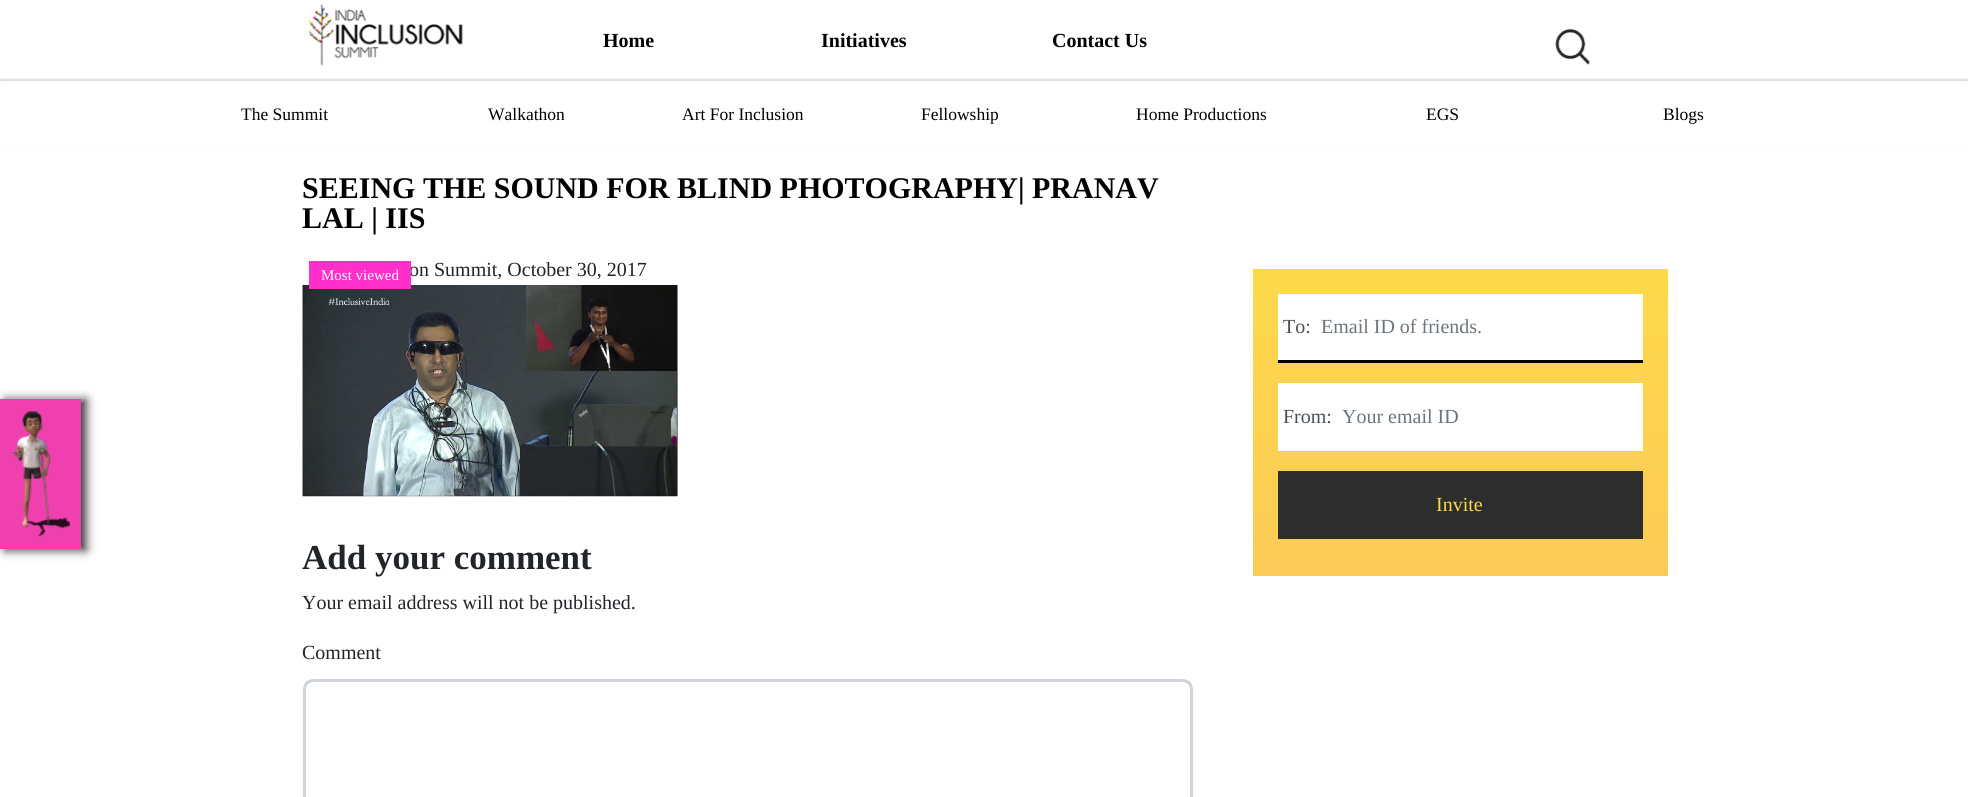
#include <cairo.h>
#include <math.h>
#include <stddef.h>

typedef struct { const char *family; double size; int italic, bold; unsigned color; } style_t;
static cairo_t *ctx;

static void ink(unsigned color) {
    cairo_set_source_rgb(ctx, (color >> 16) / 255.0, (color >> 8 & 255) / 255.0, (color & 255) / 255.0);
}

static void write(double x, double y, const char *s, const style_t *st) {
    cairo_select_font_face(ctx, st->family, st->italic ? CAIRO_FONT_SLANT_ITALIC : CAIRO_FONT_SLANT_NORMAL,
        st->bold ? CAIRO_FONT_WEIGHT_BOLD : CAIRO_FONT_WEIGHT_NORMAL);
    cairo_set_font_size(ctx, st->size);
    ink(st->color);
    cairo_move_to(ctx, x, y);
    cairo_show_text(ctx, s);
}

static void block(double x, double y, double w, double h, unsigned color) {
    ink(color);
    cairo_rectangle(ctx, x, y, w, h);
    cairo_fill(ctx);
}

static void round_path(double x, double y, double w, double h, double r) {
    cairo_new_sub_path(ctx);
    cairo_arc(ctx, x + w - r, y + h - r, r, 0, M_PI / 2);
    cairo_arc(ctx, x + r, y + h - r, r, M_PI / 2, M_PI);
    cairo_arc(ctx, x + r, y + r, r, M_PI, 1.5 * M_PI);
    cairo_arc(ctx, x + w - r, y + r, r, 1.5 * M_PI, 2 * M_PI);
    cairo_close_path(ctx);
}

static void blur_box(double x, double y, double w, double h, double r, double blur, double alpha) {
    cairo_push_group_with_content(ctx, CAIRO_CONTENT_ALPHA);
    cairo_set_operator(ctx, CAIRO_OPERATOR_SOURCE);
    for (int i = 15; i >= -15 && fmin(w, h) + blur * i / 3 > 0; i -= 2) {
        double e = blur * i / 6;
        cairo_set_source_rgba(ctx, 0, 0, 0, alpha * erfc((i - 1) / 8.5) / 2);
        round_path(x - e, y - e, w + 2 * e, h + 2 * e, fmax(0, fmin(r + e + blur * .6, fmin(w, h) / 2 + e)));
        cairo_fill(ctx);
    }
    cairo_pattern_t *soft = cairo_pop_group(ctx);
    cairo_mask(ctx, soft);
    cairo_pattern_destroy(soft);
}

static void paste(const char *path, double x, double y, double w, double h) {
    cairo_surface_t *image = cairo_image_surface_create_from_png(path);
    cairo_save(ctx);
    cairo_set_source_surface(ctx, image, x, y);
    cairo_rectangle(ctx, x, y, w, h);
    cairo_fill(ctx);
    cairo_restore(ctx);
    cairo_surface_destroy(image);
}

static const style_t s1 = {"Liberation Serif", 20, 0, 1, 0x000000};
static const style_t s2 = {"Liberation Serif", 17.5, 0, 0, 0x000000};
static const style_t s3 = {"Liberation Serif", 30, 0, 1, 0x000000};
static const style_t s4 = {"Liberation Serif", 20, 0, 0, 0x212529};
static const style_t s5 = {"Liberation Serif", 15, 0, 0, 0xffffff};
static const style_t s6 = {"Liberation Serif", 35, 0, 1, 0x212529};
static const style_t s7 = {"Liberation Serif", 20, 0, 0, 0x495057};
static const style_t s8 = {"Liberation Serif", 20, 0, 0, 0x6c757d};
static const style_t s9 = {"Liberation Serif", 20, 0, 0, 0xfcd94a};

int main(void) {
    cairo_surface_t *surface = cairo_image_surface_create(CAIRO_FORMAT_RGB24, 1968, 797);
    ctx = cairo_create(surface);
    cairo_font_options_t *options = cairo_font_options_create();
    cairo_font_options_set_hint_metrics(options, CAIRO_HINT_METRICS_OFF);
    cairo_font_options_set_hint_style(options, CAIRO_HINT_STYLE_NONE);
    cairo_set_font_options(ctx, options);
    cairo_set_miter_limit(ctx, 4);
    cairo_pattern_t *gradient;
    ink(0xffffff);
    cairo_paint(ctx);
    paste("pic1.png", 307, 4, 156, 62);
    paste("pic2.png", 1555, 28, 35, 37);
    write(821, 47, "Initiatives", &s1);
    ink(0xdcdcdc);
    blur_box(0, 79, 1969, 66, 0, 1, 1);
    block(0, 81, 1968, 65, 0xffffff);
    write(241, 120, "The Summit", &s2);
    write(488, 120, "Walkathon", &s2);
    write(682, 120, "Art For Inclusion", &s2);
    write(921, 120, "Fellowship", &s2);
    write(1136, 120, "Home Productions", &s2);
    write(1426, 120, "EGS", &s2);
    write(1663, 120, "Blogs", &s2);
    write(603, 47, "Home", &s1);
    write(1052, 47, "Contact Us", &s1);
    ink(0x333333);
    blur_box(5, 400, 81, 150, 0, 5, 1);
    block(0, 399, 81, 150, 0xf040b0);
    paste("pic3.png", 12, 411, 58, 126);
    write(302, 198, "SEEING THE SOUND FOR BLIND PHOTOGRAPHY| PRANAV", &s3);
    write(302, 228, "LAL | IIS", &s3);
    write(409, 276, "on Summit, October 30, 2017", &s4);
    paste("pic4.png", 302, 285, 376, 212);
    block(309, 261, 102, 28, 0xff2fcc);
    write(321, 280, "Most viewed", &s5);
    write(302, 569, "Add your comment", &s6);
    write(302, 609, "Your email address will not be published.", &s4);
    write(302, 659, "Comment", &s4);
    round_path(304.5, 680.5, 887, 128, 8.5);
    ink(0xced4da);
    cairo_set_line_width(ctx, 3);
    cairo_stroke(ctx);
    gradient = cairo_pattern_create_linear(1460, 269, 1460, 576);
    cairo_pattern_add_color_stop_rgba(gradient, 0, 0.988, 0.851, 0.29, 1);
    cairo_pattern_add_color_stop_rgba(gradient, 0.25, 0.988, 0.835, 0.302, 1);
    cairo_pattern_add_color_stop_rgba(gradient, 0.5, 0.988, 0.824, 0.318, 1);
    cairo_pattern_add_color_stop_rgba(gradient, 0.75, 0.988, 0.808, 0.329, 1);
    cairo_pattern_add_color_stop_rgba(gradient, 1, 0.984, 0.796, 0.341, 1);
    cairo_set_source(ctx, gradient);
    cairo_pattern_destroy(gradient);
    cairo_rectangle(ctx, 1253, 269, 415, 307);
    cairo_fill(ctx);
    block(1278, 294, 365, 66, 0xffffff);
    block(1278, 360, 365, 3, 0x000000);
    write(1283, 333, "To:", &s7);
    write(1321, 333, "Email ID of friends.", &s8);
    block(1278, 383, 365, 68, 0xffffff);
    write(1283, 423, "From:", &s7);
    write(1342, 423, "Your email ID", &s8);
    block(1278, 471, 365, 68, 0x2d2d2d);
    write(1436, 511, "Invite", &s9);
    cairo_surface_write_to_png(surface, "screenshot.png");
    cairo_font_options_destroy(options);
    cairo_destroy(ctx);
    cairo_surface_destroy(surface);
    return 0;
}
